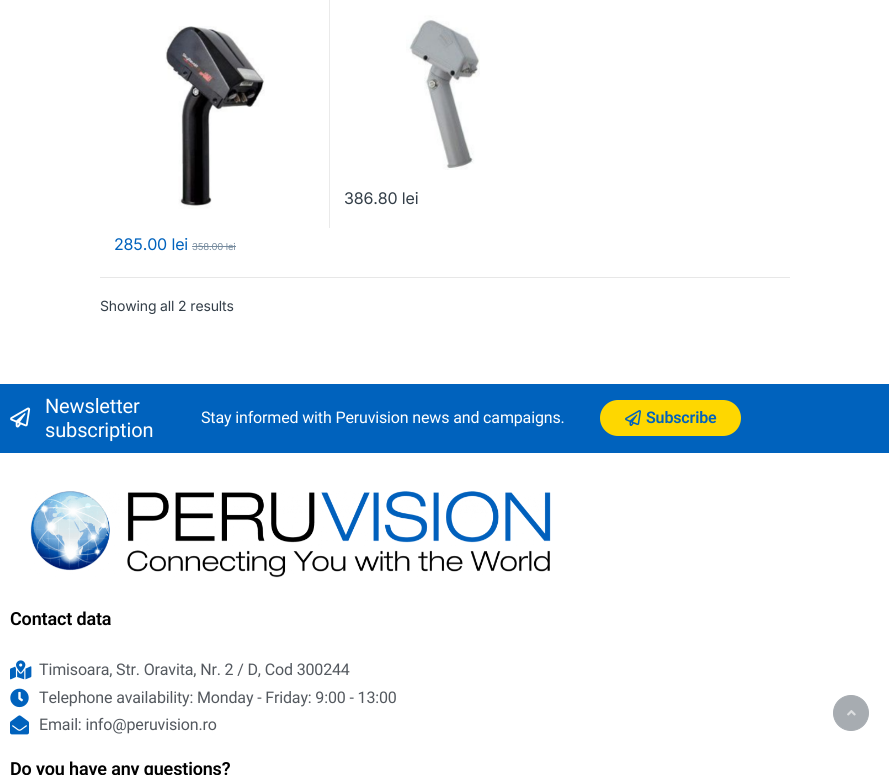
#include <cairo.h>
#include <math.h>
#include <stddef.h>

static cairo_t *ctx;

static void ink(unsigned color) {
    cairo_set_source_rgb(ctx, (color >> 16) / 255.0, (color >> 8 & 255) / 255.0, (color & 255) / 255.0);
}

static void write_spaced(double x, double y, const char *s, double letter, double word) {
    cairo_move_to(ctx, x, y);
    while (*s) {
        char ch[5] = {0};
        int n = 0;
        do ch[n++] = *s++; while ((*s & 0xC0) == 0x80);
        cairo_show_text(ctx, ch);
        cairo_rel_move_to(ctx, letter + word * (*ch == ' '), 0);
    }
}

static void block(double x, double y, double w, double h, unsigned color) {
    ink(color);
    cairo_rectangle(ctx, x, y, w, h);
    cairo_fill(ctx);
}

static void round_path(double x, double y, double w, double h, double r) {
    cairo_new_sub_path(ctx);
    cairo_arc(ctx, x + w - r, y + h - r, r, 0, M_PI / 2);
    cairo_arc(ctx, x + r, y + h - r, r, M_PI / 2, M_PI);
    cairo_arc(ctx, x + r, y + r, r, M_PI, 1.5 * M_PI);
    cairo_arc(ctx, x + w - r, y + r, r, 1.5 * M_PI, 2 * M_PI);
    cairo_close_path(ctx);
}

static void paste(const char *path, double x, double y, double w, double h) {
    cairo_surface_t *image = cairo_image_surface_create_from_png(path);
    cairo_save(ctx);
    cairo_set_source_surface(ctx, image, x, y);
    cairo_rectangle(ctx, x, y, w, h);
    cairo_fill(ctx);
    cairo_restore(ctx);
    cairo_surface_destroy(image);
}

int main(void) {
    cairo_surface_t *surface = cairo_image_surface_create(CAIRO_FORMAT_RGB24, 889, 775);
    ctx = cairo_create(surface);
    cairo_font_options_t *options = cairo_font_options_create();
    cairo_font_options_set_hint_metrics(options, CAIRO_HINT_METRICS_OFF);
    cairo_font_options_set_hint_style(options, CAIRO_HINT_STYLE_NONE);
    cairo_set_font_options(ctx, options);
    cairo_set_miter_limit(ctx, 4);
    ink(0xffffff);
    cairo_paint(ctx);
    paste("pic1.png", 406, 15, 74, 155);
    cairo_select_font_face(ctx, "Inter", CAIRO_FONT_SLANT_NORMAL, CAIRO_FONT_WEIGHT_NORMAL);
    cairo_set_font_size(ctx, 16);
    ink(0x333e48);
    write_spaced(344, 204, "386.80 lei", -0.15, 0);
    block(329, 0, 1, 228, 0xeaeaea);
    paste("pic2.png", 165, 26, 100, 183);
    ink(0x0062bd);
    write_spaced(114, 250, "285.00 lei", -0.15, 0);
    cairo_set_font_size(ctx, 9.5);
    ink(0x768b9e);
    write_spaced(192, 250, "358.00 lei", -0.15, 0);
    block(192, 246, 44, 1, 0x768b9e);
    block(100, 277, 690, 1, 0xe7e7e7);
    cairo_set_font_size(ctx, 14);
    ink(0x333e48);
    write_spaced(100, 311, "Showing all 2 results", -0.15, 0);
    block(0, 384, 889, 69, 0x0062bd);
    paste("pic3.png", 10, 407, 21, 21);
    cairo_select_font_face(ctx, "Roboto", CAIRO_FONT_SLANT_NORMAL, CAIRO_FONT_WEIGHT_NORMAL);
    cairo_set_font_size(ctx, 20);
    ink(0xffffff);
    write_spaced(45, 413, "Newsletter", -0.15, 0);
    write_spaced(45, 437, "subscription", -0.15, 0);
    cairo_set_font_size(ctx, 16);
    write_spaced(201, 423, "Stay informed with Peruvision news and campaigns.", -0.15, 0);
    ink(0xfed700);
    round_path(600, 400, 141, 36, 18);
    cairo_fill(ctx);
    paste("pic4.png", 625, 410, 16, 16);
    cairo_select_font_face(ctx, "Roboto SemiBold", CAIRO_FONT_SLANT_NORMAL, CAIRO_FONT_WEIGHT_NORMAL);
    ink(0x0062bd);
    write_spaced(646, 423, "Subscribe", -0.15, 0);
    paste("pic5.png", 30, 491, 521, 87);
    cairo_set_font_size(ctx, 18);
    ink(0x000000);
    write_spaced(10, 625, "Contact data", -0.15, 0);
    paste("pic6.png", 10, 660, 22, 20);
    cairo_select_font_face(ctx, "Roboto", CAIRO_FONT_SLANT_NORMAL, CAIRO_FONT_WEIGHT_NORMAL);
    cairo_set_font_size(ctx, 16);
    ink(0x54595f);
    write_spaced(39, 675, "Timisoara, Str. Oravita, Nr. 2 / D, Cod 300244", -0.15, 0);
    paste("pic7.png", 10, 688, 19, 20);
    write_spaced(39, 703, "Telephone availability: Monday - Friday: 9:00 - 13:00", -0.15, 0);
    paste("pic8.png", 10, 715, 19, 20);
    write_spaced(39, 730, "Email: info@peruvision.ro", -0.15, 0);
    cairo_select_font_face(ctx, "Roboto SemiBold", CAIRO_FONT_SLANT_NORMAL, CAIRO_FONT_WEIGHT_NORMAL);
    cairo_set_font_size(ctx, 18);
    ink(0x000000);
    write_spaced(10, 775, "Do you have any questions?", -0.15, 0);
    ink(0xa7acb1);
    cairo_new_path(ctx);
    cairo_arc(ctx, 851, 713, 17.5, 0, 2 * M_PI);
    cairo_fill_preserve(ctx);
    cairo_set_line_width(ctx, 1);
    cairo_stroke(ctx);
    paste("pic9.png", 847, 710, 9, 6);
    cairo_surface_write_to_png(surface, "screenshot.png");
    cairo_font_options_destroy(options);
    cairo_destroy(ctx);
    cairo_surface_destroy(surface);
    return 0;
}
